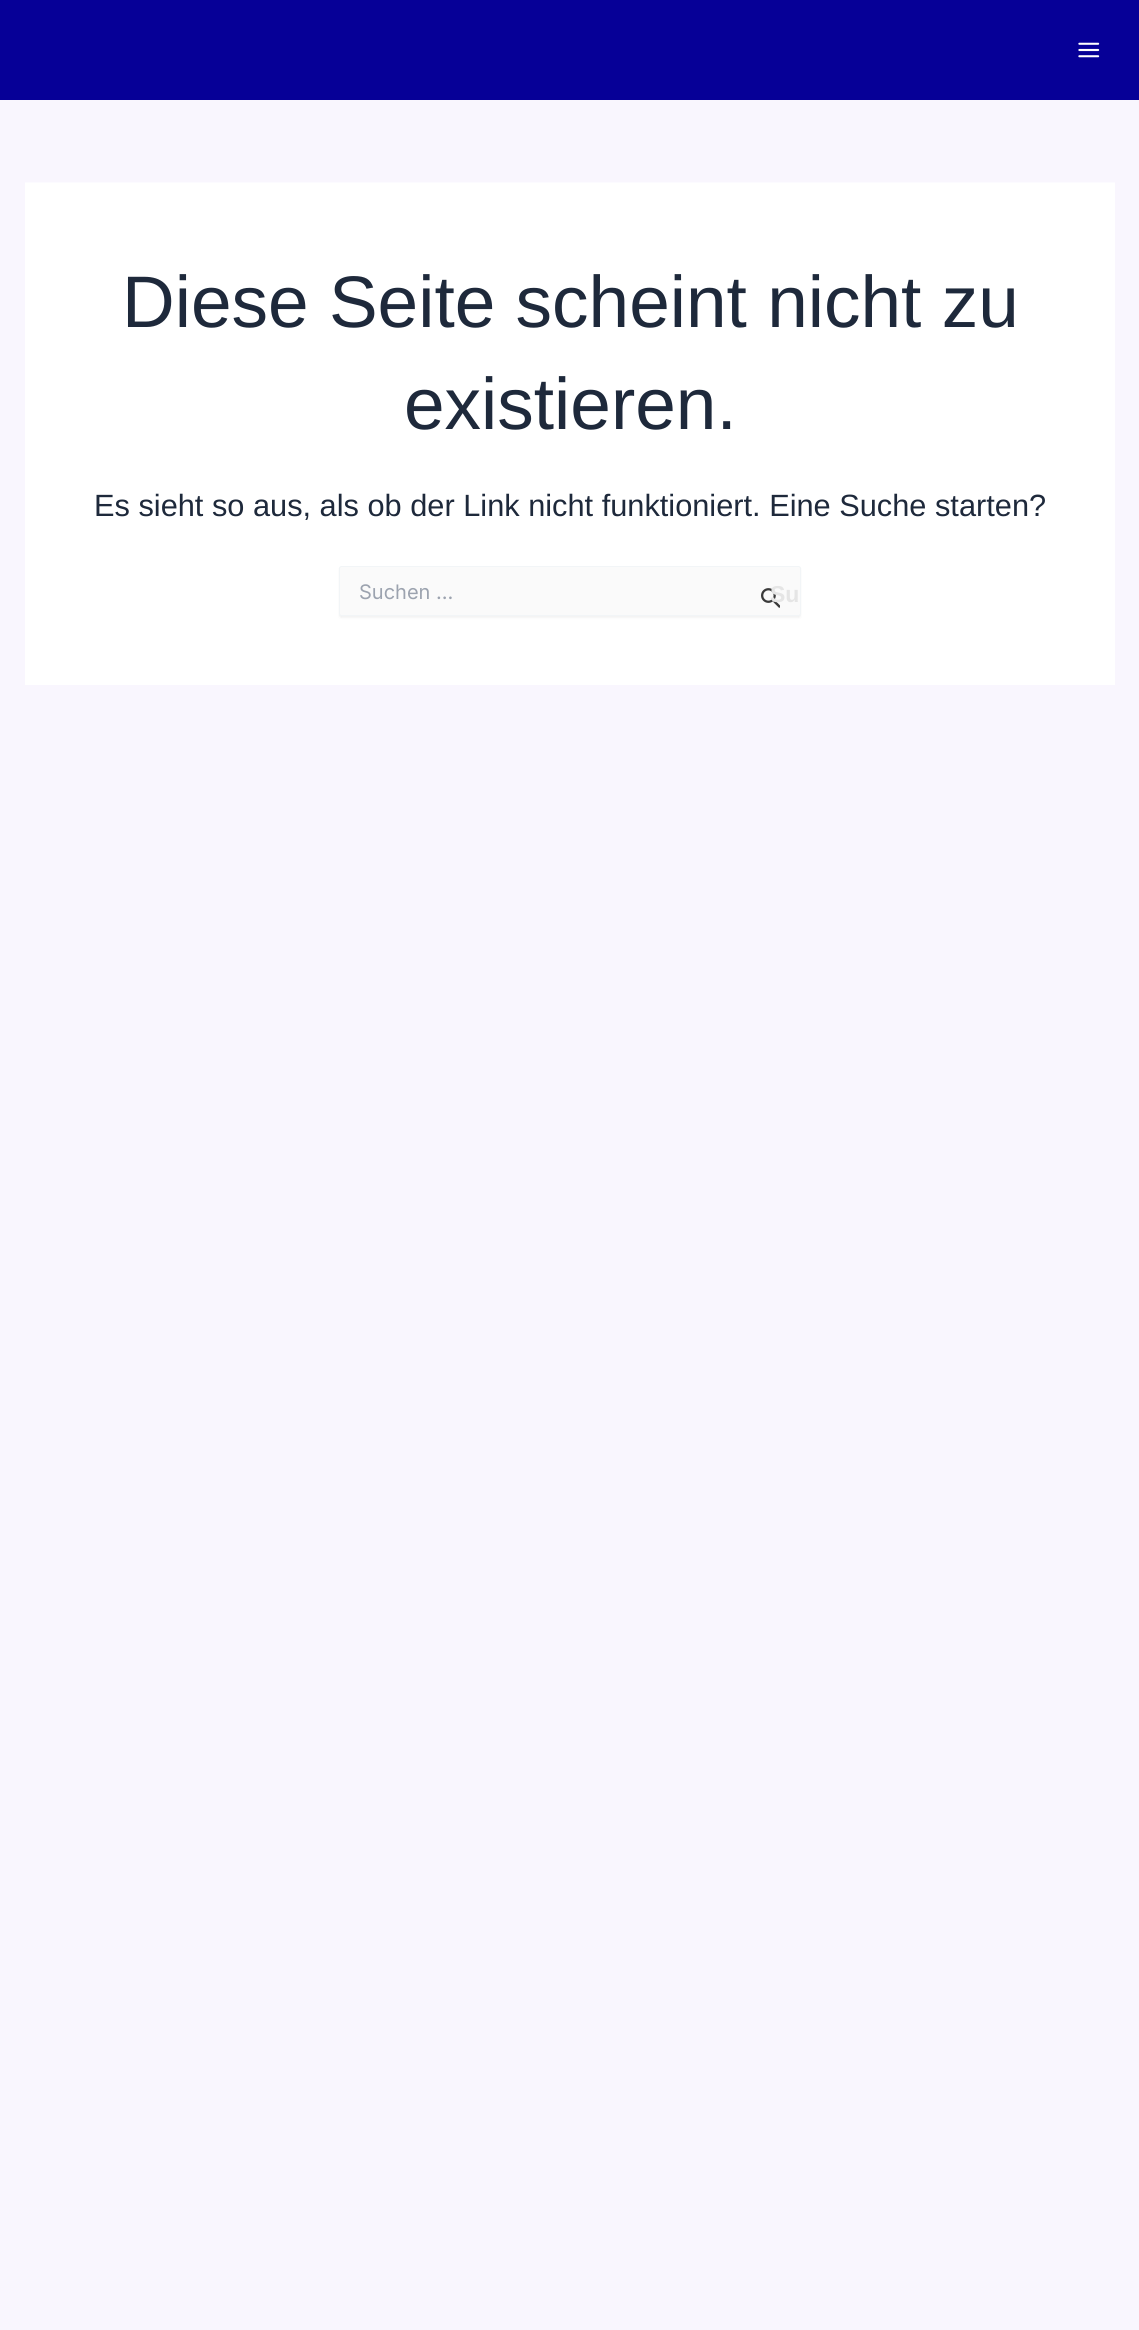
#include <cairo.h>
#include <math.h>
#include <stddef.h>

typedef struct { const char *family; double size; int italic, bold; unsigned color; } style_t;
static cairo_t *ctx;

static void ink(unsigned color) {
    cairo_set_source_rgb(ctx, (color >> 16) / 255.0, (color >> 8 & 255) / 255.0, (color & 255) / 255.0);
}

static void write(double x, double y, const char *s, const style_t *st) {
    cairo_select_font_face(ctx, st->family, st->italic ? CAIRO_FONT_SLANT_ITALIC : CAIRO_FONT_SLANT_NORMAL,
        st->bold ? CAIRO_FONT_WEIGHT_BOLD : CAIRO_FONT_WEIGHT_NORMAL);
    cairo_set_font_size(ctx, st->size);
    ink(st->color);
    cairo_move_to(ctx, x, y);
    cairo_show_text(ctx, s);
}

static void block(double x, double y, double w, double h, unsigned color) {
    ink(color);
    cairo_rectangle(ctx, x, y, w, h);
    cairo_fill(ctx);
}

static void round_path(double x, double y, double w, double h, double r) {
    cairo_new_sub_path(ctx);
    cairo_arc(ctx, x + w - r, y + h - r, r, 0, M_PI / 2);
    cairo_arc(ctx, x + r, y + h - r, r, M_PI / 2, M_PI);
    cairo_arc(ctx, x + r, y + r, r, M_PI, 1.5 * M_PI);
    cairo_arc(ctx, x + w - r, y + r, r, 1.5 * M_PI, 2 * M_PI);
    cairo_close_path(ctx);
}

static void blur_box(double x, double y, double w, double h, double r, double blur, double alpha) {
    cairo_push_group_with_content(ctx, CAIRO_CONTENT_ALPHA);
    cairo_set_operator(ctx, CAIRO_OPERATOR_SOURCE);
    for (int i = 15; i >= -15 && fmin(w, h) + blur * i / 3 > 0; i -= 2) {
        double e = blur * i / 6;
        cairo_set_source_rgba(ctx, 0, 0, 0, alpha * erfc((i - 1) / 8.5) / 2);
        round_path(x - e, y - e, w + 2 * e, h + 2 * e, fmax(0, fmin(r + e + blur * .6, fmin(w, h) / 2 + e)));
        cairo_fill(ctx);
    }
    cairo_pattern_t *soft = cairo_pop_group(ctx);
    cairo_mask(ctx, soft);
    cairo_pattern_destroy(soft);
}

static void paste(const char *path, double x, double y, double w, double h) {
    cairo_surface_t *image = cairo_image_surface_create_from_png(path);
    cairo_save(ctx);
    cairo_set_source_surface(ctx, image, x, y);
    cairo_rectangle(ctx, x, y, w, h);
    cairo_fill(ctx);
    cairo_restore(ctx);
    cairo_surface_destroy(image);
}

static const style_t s1 = {"Liberation Sans", 73, 0, 0, 0x1e293b};
static const style_t s2 = {"Liberation Sans", 30.75, 0, 0, 0x1e293b};
static const style_t s3 = {"Inter", 20, 0, 0, 0x9ca3af};
static const style_t s4 = {"Liberation Sans", 23, 0, 1, 0xe5e5e5};

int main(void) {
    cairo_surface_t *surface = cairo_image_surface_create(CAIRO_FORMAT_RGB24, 1139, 2330);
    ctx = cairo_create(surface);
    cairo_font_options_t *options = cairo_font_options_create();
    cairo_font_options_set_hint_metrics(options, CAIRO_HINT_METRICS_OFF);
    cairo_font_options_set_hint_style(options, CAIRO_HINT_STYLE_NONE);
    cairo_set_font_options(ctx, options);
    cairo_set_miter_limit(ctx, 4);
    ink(0xf9f6fe);
    cairo_paint(ctx);
    block(0, 0, 1139, 100, 0x060097);
    paste("pic1.png", 1078, 42, 22, 16);
    block(25, 183, 1090, 502, 0xffffff);
    block(25, 182, 1090, 1, 0xfcfbff);
    write(122, 327, "Diese Seite scheint nicht zu", &s1);
    write(404, 429, "existieren.", &s1);
    write(94, 516, "Es sieht so aus, als ob der Link nicht funktioniert. Eine Suche starten?", &s2);
    ink(0x000000);
    blur_box(339, 568, 462, 50, 2.5, 1, 0.05);
    ink(0xfafafa);
    round_path(339.5, 566.5, 461, 49, 2);
    cairo_fill_preserve(ctx);
    ink(0xf2f5f7);
    cairo_set_line_width(ctx, 1);
    cairo_stroke(ctx);
    write(359, 599, "Suchen …", &s3);
    paste("pic2.png", 761, 588, 19, 20);
    write(770, 602, "Su", &s4);
    cairo_surface_write_to_png(surface, "screenshot.png");
    cairo_font_options_destroy(options);
    cairo_destroy(ctx);
    cairo_surface_destroy(surface);
    return 0;
}
